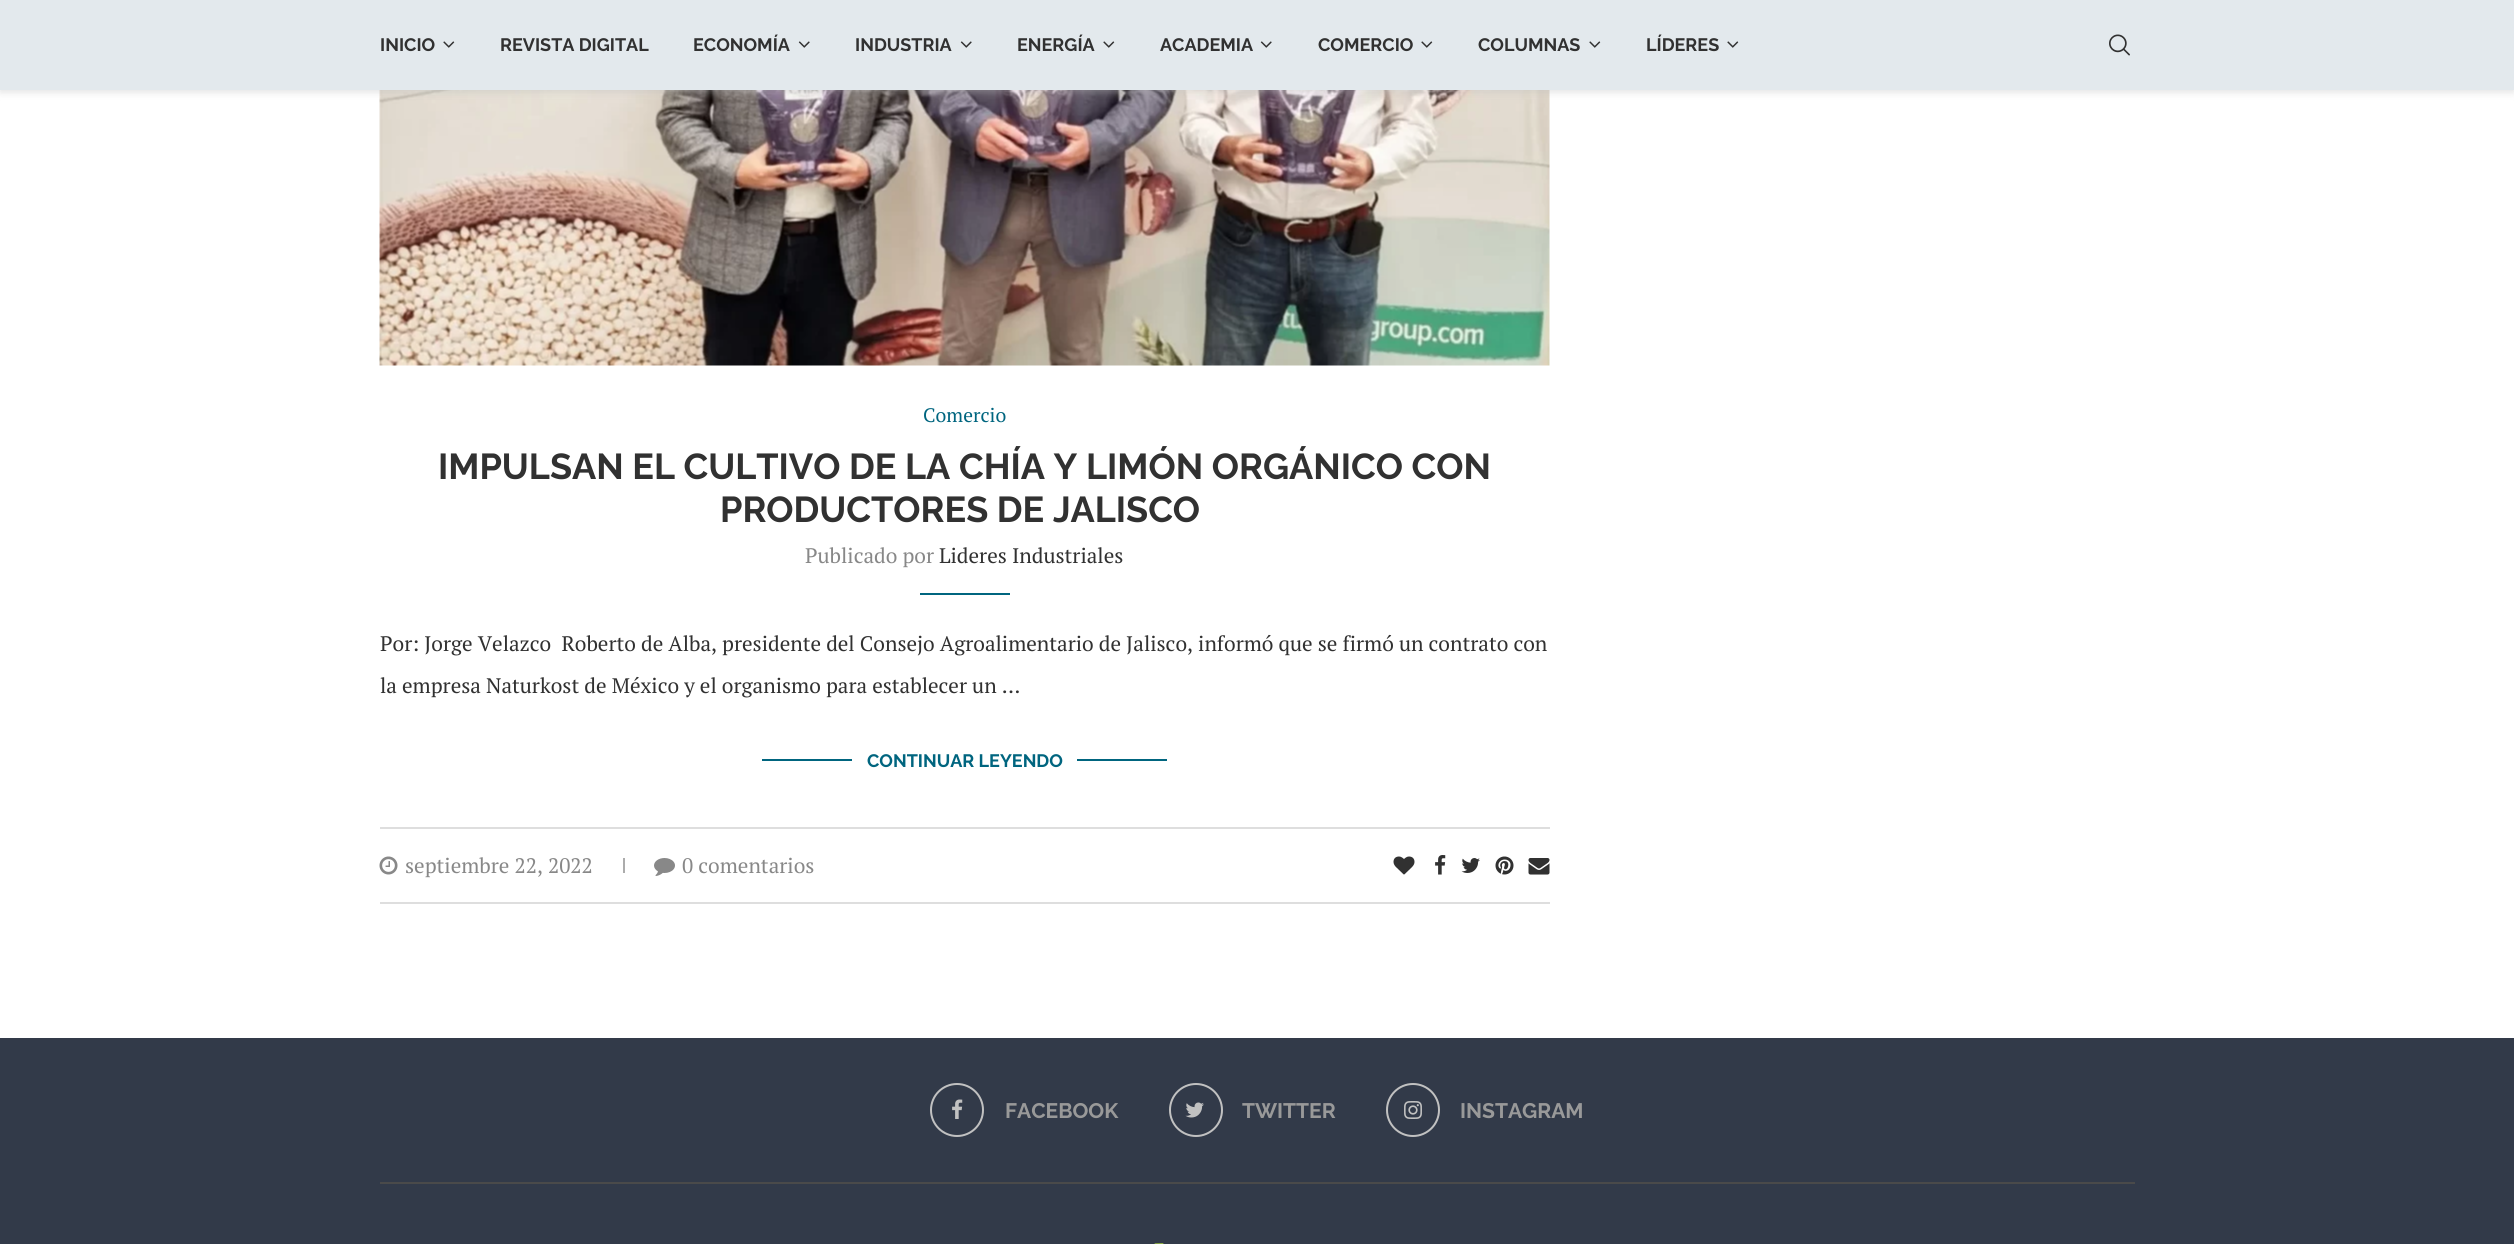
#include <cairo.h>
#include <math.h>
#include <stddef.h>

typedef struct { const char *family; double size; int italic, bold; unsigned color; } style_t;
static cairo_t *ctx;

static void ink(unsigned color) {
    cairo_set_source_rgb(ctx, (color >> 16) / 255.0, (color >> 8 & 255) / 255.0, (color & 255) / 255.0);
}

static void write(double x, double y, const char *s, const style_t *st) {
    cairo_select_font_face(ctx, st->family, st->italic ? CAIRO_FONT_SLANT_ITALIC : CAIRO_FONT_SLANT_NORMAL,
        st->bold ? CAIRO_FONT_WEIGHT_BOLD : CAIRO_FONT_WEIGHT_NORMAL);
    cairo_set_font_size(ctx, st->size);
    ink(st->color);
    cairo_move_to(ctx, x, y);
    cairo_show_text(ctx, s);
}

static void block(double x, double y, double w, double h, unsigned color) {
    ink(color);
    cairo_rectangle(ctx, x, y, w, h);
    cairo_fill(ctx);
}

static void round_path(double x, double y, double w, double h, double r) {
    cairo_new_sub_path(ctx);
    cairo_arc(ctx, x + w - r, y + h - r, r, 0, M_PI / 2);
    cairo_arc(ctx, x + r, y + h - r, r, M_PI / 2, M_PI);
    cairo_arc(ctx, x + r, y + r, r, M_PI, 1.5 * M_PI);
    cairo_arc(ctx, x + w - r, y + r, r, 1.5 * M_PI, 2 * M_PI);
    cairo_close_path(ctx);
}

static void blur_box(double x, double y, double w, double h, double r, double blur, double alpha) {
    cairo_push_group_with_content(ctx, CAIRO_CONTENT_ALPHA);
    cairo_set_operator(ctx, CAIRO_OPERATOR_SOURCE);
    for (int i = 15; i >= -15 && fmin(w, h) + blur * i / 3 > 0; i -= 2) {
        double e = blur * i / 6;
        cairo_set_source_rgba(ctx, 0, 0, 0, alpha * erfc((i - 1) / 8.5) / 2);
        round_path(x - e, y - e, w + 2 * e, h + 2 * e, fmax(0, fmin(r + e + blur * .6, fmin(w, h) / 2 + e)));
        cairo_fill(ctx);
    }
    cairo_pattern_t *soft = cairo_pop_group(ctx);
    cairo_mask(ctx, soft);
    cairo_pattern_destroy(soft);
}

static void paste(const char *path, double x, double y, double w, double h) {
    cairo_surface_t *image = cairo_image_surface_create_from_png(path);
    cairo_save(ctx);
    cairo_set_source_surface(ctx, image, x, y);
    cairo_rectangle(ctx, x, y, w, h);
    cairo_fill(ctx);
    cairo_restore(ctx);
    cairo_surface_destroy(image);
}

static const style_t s1 = {"Raleway", 18, 0, 1, 0x313131};
static const style_t s2 = {"PT Serif", 19.5, 0, 0, 0x00657f};
static const style_t s3 = {"Raleway", 36, 0, 1, 0x313131};
static const style_t s4 = {"PT Serif", 21, 0, 0, 0x888888};
static const style_t s5 = {"PT Serif", 21, 0, 0, 0x313131};
static const style_t s6 = {"Raleway", 18, 0, 1, 0x00657f};
static const style_t s7 = {"Raleway", 21, 0, 1, 0x999999};

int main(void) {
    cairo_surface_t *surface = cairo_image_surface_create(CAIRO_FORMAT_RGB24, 2514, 1244);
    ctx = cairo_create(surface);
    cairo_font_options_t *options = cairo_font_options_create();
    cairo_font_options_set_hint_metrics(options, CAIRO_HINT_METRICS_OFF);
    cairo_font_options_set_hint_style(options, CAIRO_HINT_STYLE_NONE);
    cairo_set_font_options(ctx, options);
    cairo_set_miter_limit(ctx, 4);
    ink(0xffffff);
    cairo_paint(ctx);
    paste("pic4.png", 379, 90, 1171, 276);
    ink(0xbebebe);
    blur_box(0, 2, 2514, 90, 0, 4, 0.46);
    block(0, 0, 2514, 90, 0xe3e9ed);
    write(380, 51, "INICIO", &s1);
    paste("pic1.png", 443, 41, 12, 7);
    write(500, 51, "REVISTA DIGITAL", &s1);
    write(693, 51, "ECONOMÍA", &s1);
    paste("pic2.png", 798, 41, 12, 7);
    write(855, 51, "INDUSTRIA", &s1);
    paste("pic2.png", 960, 41, 12, 7);
    write(1017, 51, "ENERGÍA", &s1);
    paste("pic1.png", 1103, 41, 12, 7);
    write(1160, 51, "ACADEMIA", &s1);
    paste("pic2.png", 1260, 41, 12, 7);
    write(1318, 51, "COMERCIO", &s1);
    paste("pic1.png", 1421, 41, 12, 7);
    write(1478, 51, "COLUMNAS", &s1);
    paste("pic1.png", 1589, 41, 12, 7);
    write(1646, 51, "LÍDERES", &s1);
    paste("pic1.png", 1727, 41, 12, 7);
    paste("pic3.png", 2109, 34, 21, 22);
    write(923, 422, "Comercio", &s2);
    write(438, 479, "IMPULSAN EL CULTIVO DE LA CHÍA Y LIMÓN ORGÁNICO CON", &s3);
    write(720, 522, "PRODUCTORES DE JALISCO", &s3);
    write(805, 563, "Publicado por", &s4);
    write(939, 563, "Lideres Industriales", &s5);
    block(920, 593, 90, 2, 0x00657f);
    write(380, 651, "Por: Jorge Velazco  Roberto de Alba, presidente del Consejo Agroalimentario de Jalisco, informó que se firmó un contrato con", &s5);
    write(380, 693, "la empresa Naturkost de México y el organismo para establecer un …", &s5);
    block(762, 759, 90, 2, 0x00657f);
    write(867, 767, "CONTINUAR LEYENDO", &s6);
    block(1077, 759, 90, 2, 0x00657f);
    block(380, 827, 1170, 2, 0xdedede);
    block(380, 902, 1170, 2, 0xdedede);
    paste("pic5.png", 379, 856, 19, 19);
    write(405, 873, "septiembre 22, 2022", &s4);
    block(623, 858, 2, 15, 0xacacac);
    paste("pic6.png", 654, 858, 21, 18);
    write(682, 873, "0 comentarios", &s4);
    paste("pic7.png", 1393, 856, 22, 19);
    paste("pic8.png", 1435, 855, 11, 20);
    paste("pic9.png", 1461, 858, 19, 15);
    paste("pic10.png", 1495, 856, 19, 19);
    paste("pic11.png", 1528, 858, 22, 17);
    block(0, 1038, 2514, 206, 0x323a49);
    block(380, 1182, 1755, 2, 0x4a4a4a);
    cairo_arc(ctx, 957, 1110, 26, 0, 2 * M_PI);
    ink(0xc1c1c1);
    cairo_stroke(ctx);
    paste("pic12.png", 952, 1099, 11, 20);
    write(1005, 1118, "FACEBOOK", &s7);
    cairo_new_path(ctx);
    cairo_arc(ctx, 1196, 1110, 26, 0, 2 * M_PI);
    ink(0xc1c1c1);
    cairo_stroke(ctx);
    paste("pic13.png", 1185, 1102, 19, 16);
    write(1242, 1118, "TWITTER", &s7);
    cairo_new_path(ctx);
    cairo_arc(ctx, 1413, 1110, 26, 0, 2 * M_PI);
    ink(0xc1c1c1);
    cairo_stroke(ctx);
    paste("pic14.png", 1404, 1101, 18, 18);
    write(1460, 1118, "INSTAGRAM", &s7);
    paste("pic15.png", 1154, 1243, 10, 1);
    cairo_surface_write_to_png(surface, "screenshot.png");
    cairo_font_options_destroy(options);
    cairo_destroy(ctx);
    cairo_surface_destroy(surface);
    return 0;
}
